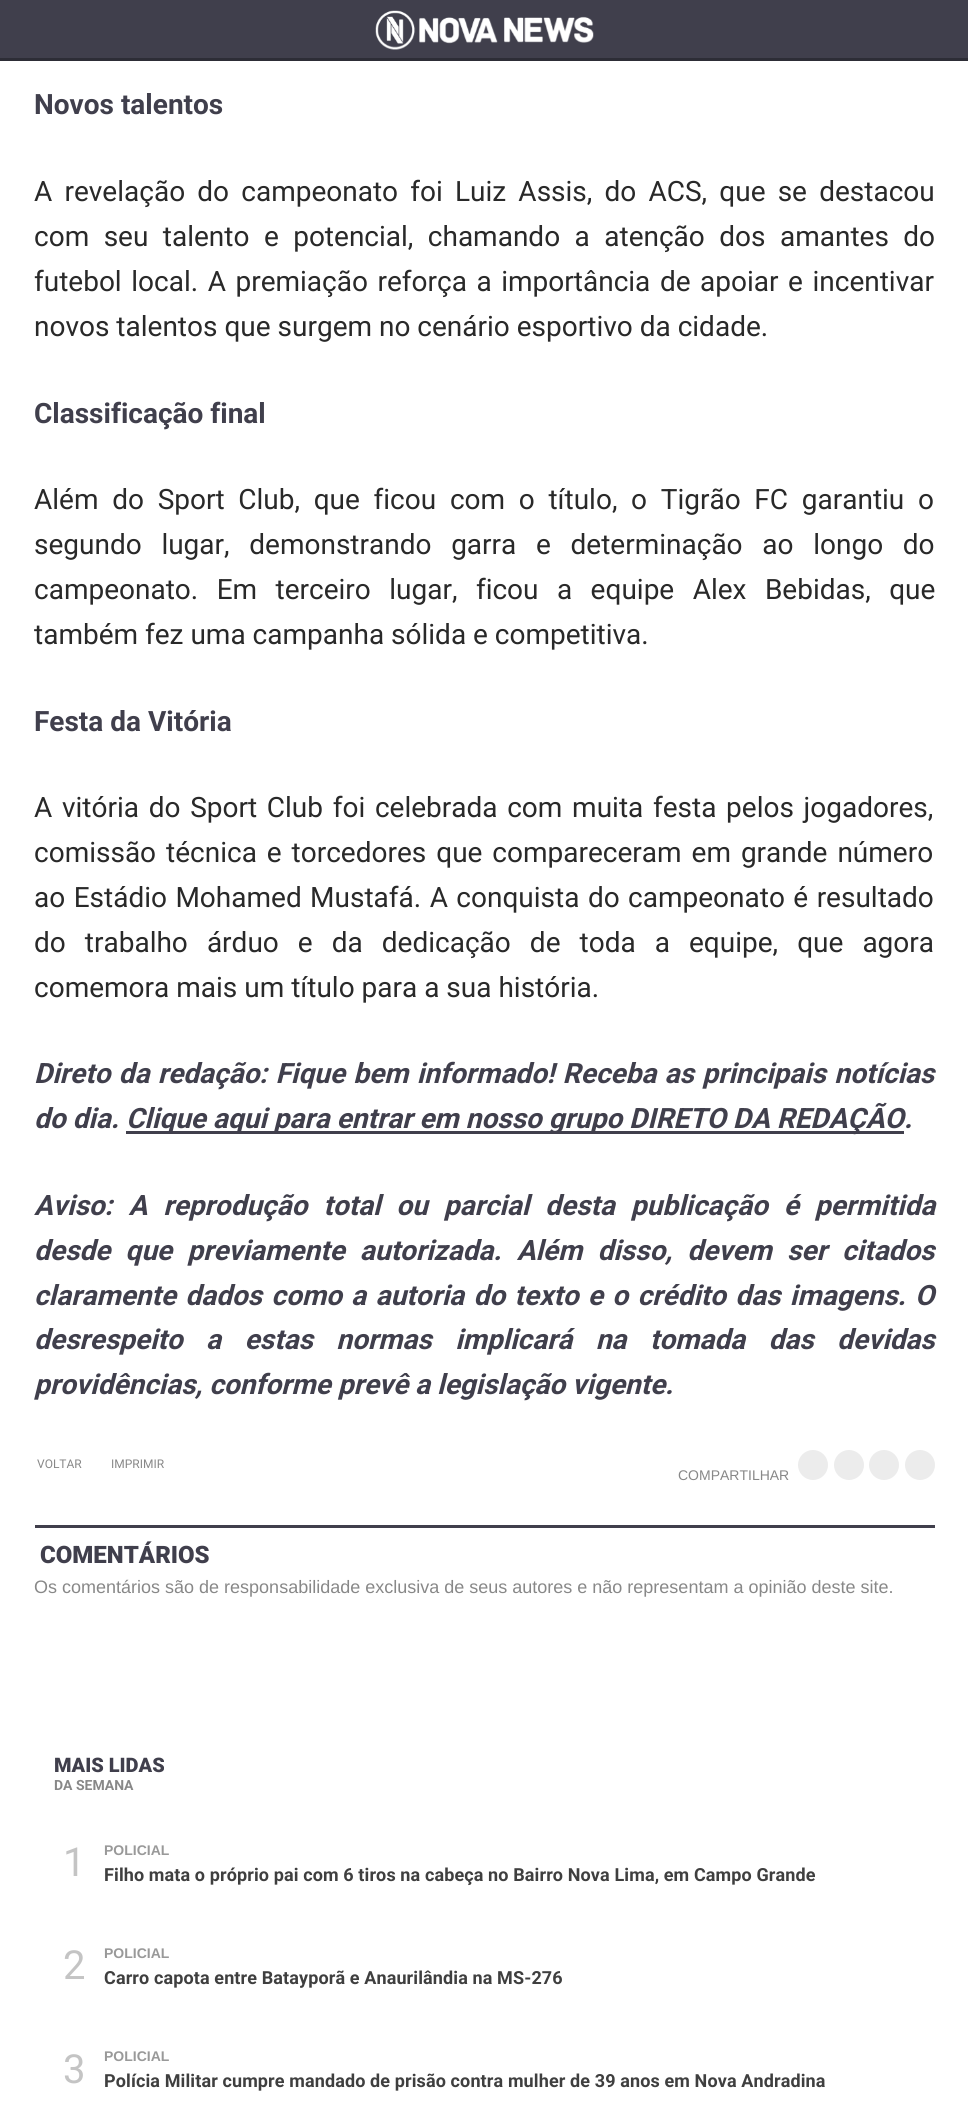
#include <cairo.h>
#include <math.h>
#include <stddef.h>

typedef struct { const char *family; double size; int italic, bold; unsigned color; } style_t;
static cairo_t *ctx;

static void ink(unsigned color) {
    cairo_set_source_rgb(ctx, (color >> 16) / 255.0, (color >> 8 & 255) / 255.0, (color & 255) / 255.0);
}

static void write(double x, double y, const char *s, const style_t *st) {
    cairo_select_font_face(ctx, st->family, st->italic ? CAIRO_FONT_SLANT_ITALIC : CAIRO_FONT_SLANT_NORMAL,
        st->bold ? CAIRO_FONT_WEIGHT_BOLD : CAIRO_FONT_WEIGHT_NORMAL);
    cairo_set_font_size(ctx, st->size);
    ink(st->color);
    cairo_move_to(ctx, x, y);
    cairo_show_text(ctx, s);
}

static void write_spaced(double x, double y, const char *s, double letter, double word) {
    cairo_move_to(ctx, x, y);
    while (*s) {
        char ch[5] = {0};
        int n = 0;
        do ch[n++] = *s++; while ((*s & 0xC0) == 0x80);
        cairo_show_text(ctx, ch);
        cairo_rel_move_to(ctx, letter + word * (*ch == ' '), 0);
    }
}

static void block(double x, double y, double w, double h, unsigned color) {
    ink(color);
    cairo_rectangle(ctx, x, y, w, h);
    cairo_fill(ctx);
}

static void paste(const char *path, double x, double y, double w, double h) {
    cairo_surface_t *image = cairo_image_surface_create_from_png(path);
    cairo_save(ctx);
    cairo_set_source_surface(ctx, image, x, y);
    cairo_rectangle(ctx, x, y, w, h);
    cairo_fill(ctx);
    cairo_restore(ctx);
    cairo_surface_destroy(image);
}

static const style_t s1 = {"Roboto", 28, 0, 1, 0x403f4c};
static const style_t s2 = {"Roboto", 28, 0, 0, 0x292929};
static const style_t s3 = {"Roboto", 28, 1, 1, 0x403f4c};
static const style_t s4 = {"Roboto", 12, 0, 0, 0x888888};
static const style_t s5 = {"Liberation Sans", 14, 0, 0, 0x888888};
static const style_t s6 = {"Roboto Black", 24, 0, 0, 0x403f4c};
static const style_t s7 = {"Liberation Sans", 18, 0, 0, 0x888888};
static const style_t s8 = {"Roboto Black", 20, 0, 0, 0x403f4c};
static const style_t s9 = {"Roboto", 14, 0, 1, 0x888888};
static const style_t s10 = {"Roboto", 40, 0, 0, 0xc4c4c4};
static const style_t s11 = {"Liberation Sans", 14, 0, 1, 0x999999};

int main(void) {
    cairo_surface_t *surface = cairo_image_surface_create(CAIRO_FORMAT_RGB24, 968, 2114);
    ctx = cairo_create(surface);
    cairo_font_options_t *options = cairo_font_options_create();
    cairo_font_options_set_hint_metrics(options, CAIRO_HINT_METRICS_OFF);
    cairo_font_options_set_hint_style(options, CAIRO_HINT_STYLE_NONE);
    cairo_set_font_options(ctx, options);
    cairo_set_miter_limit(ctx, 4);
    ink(0xffffff);
    cairo_paint(ctx);
    block(0, 0, 968, 58, 0x403f4c);
    block(0, 58, 968, 3, 0x2d2d36);
    paste("pic1.png", 375, 10, 219, 40);
    write(34, 114, "Novos talentos", &s1);
    cairo_select_font_face(ctx, "Roboto", CAIRO_FONT_SLANT_NORMAL, CAIRO_FONT_WEIGHT_NORMAL);
    ink(0x292929);
    write_spaced(34, 201, "A revelação do campeonato foi Luiz Assis, do ACS, que se destacou", 0, 5.25);
    write_spaced(34, 246, "com seu talento e potencial, chamando a atenção dos amantes do", 0, 7.5);
    write_spaced(34, 291, "futebol local. A premiação reforça a importância de apoiar e incentivar", 0, 2.6);
    write(34, 336, "novos talentos que surgem no cenário esportivo da cidade.", &s2);
    write(34, 423, "Classificação final", &s1);
    cairo_select_font_face(ctx, "Roboto", CAIRO_FONT_SLANT_NORMAL, CAIRO_FONT_WEIGHT_NORMAL);
    ink(0x292929);
    write_spaced(34, 509, "Além do Sport Club, que ficou com o título, o Tigrão FC garantiu o", 0, 6.75);
    write_spaced(34, 554, "segundo lugar, demonstrando garra e determinação ao longo do", 0, 12.75);
    write_spaced(34, 599, "campeonato. Em terceiro lugar, ficou a equipe Alex Bebidas, que", 0, 11.5);
    write(34, 644, "também fez uma campanha sólida e competitiva.", &s2);
    write(34, 731, "Festa da Vitória", &s1);
    cairo_select_font_face(ctx, "Roboto", CAIRO_FONT_SLANT_NORMAL, CAIRO_FONT_WEIGHT_NORMAL);
    ink(0x292929);
    write_spaced(34, 817, "A vitória do Sport Club foi celebrada com muita festa pelos jogadores,", 0, 2.75);
    write_spaced(34, 862, "comissão técnica e torcedores que compareceram em grande número", 0, 3);
    write_spaced(34, 907, "ao Estádio Mohamed Mustafá. A conquista do campeonato é resultado", 0, 1.5);
    write_spaced(34, 952, "do trabalho árduo e da dedicação de toda a equipe, que agora", 0, 12.1);
    write(34, 997, "comemora mais um título para a sua história.", &s2);
    cairo_select_font_face(ctx, "Roboto", CAIRO_FONT_SLANT_ITALIC, CAIRO_FONT_WEIGHT_BOLD);
    ink(0x403f4c);
    write_spaced(34, 1083, "Direto da redação: Fique bem informado! Receba as principais notícias", 0, 1.4);
    write(34, 1128, "do dia.", &s3);
    block(126, 1131, 778, 3, 0x403f4c);
    write(126, 1128, "Clique aqui para entrar em nosso grupo DIRETO DA REDAÇÃO", &s3);
    write(904, 1128, ".", &s3);
    write_spaced(34, 1215, "Aviso: A reprodução total ou parcial desta publicação é permitida", 0, 9);
    write_spaced(34, 1260, "desde que previamente autorizada. Além disso, devem ser citados", 0, 8.25);
    write_spaced(34, 1305, "claramente dados como a autoria do texto e o crédito das imagens. O", 0, 2.4);
    write_spaced(34, 1349, "desrespeito a estas normas implicará na tomada das devidas", 0, 16.5);
    write(34, 1394, "providências, conforme prevê a legislação vigente.", &s3);
    write(37, 1468, "VOLTAR", &s4);
    write(111, 1468, "IMPRIMIR", &s4);
    write(678, 1480, "COMPARTILHAR", &s5);
    ink(0xececec);
    cairo_new_path(ctx);
    cairo_arc(ctx, 813, 1465, 15, 0, 2 * M_PI);
    cairo_fill(ctx);
    cairo_arc(ctx, 849, 1465, 15, 0, 2 * M_PI);
    cairo_fill(ctx);
    cairo_arc(ctx, 884, 1465, 15, 0, 2 * M_PI);
    cairo_fill(ctx);
    cairo_arc(ctx, 920, 1465, 15, 0, 2 * M_PI);
    cairo_fill(ctx);
    block(35, 1525, 900, 3, 0x403f4c);
    write(40, 1563, "COMENTÁRIOS", &s6);
    write(34, 1593, "Os comentários são de responsabilidade exclusiva de seus autores e não representam a opinião deste site.", &s7);
    write(54, 1772, "MAIS LIDAS", &s8);
    write(54, 1790, "DA SEMANA", &s9);
    write(63, 1876, "1", &s10);
    write(104, 1855, "POLICIAL", &s11);
    cairo_select_font_face(ctx, "Roboto", CAIRO_FONT_SLANT_NORMAL, CAIRO_FONT_WEIGHT_BOLD);
    cairo_set_font_size(ctx, 18);
    ink(0x3f3f3f);
    write_spaced(104, 1881, "Filho mata o próprio pai com 6 tiros na cabeça no Bairro Nova Lima, em Campo Grande", 0.12, 0);
    write(63, 1979, "2", &s10);
    write(104, 1958, "POLICIAL", &s11);
    cairo_select_font_face(ctx, "Roboto", CAIRO_FONT_SLANT_NORMAL, CAIRO_FONT_WEIGHT_BOLD);
    cairo_set_font_size(ctx, 18);
    ink(0x3f3f3f);
    write_spaced(104, 1984, "Carro capota entre Batayporã e Anaurilândia na MS-276", 0.12, 0);
    write(63, 2083, "3", &s10);
    write(104, 2061, "POLICIAL", &s11);
    cairo_select_font_face(ctx, "Roboto", CAIRO_FONT_SLANT_NORMAL, CAIRO_FONT_WEIGHT_BOLD);
    cairo_set_font_size(ctx, 18);
    ink(0x3f3f3f);
    write_spaced(104, 2087, "Polícia Militar cumpre mandado de prisão contra mulher de 39 anos em Nova Andradina", 0.12, 0);
    cairo_surface_write_to_png(surface, "screenshot.png");
    cairo_font_options_destroy(options);
    cairo_destroy(ctx);
    cairo_surface_destroy(surface);
    return 0;
}
